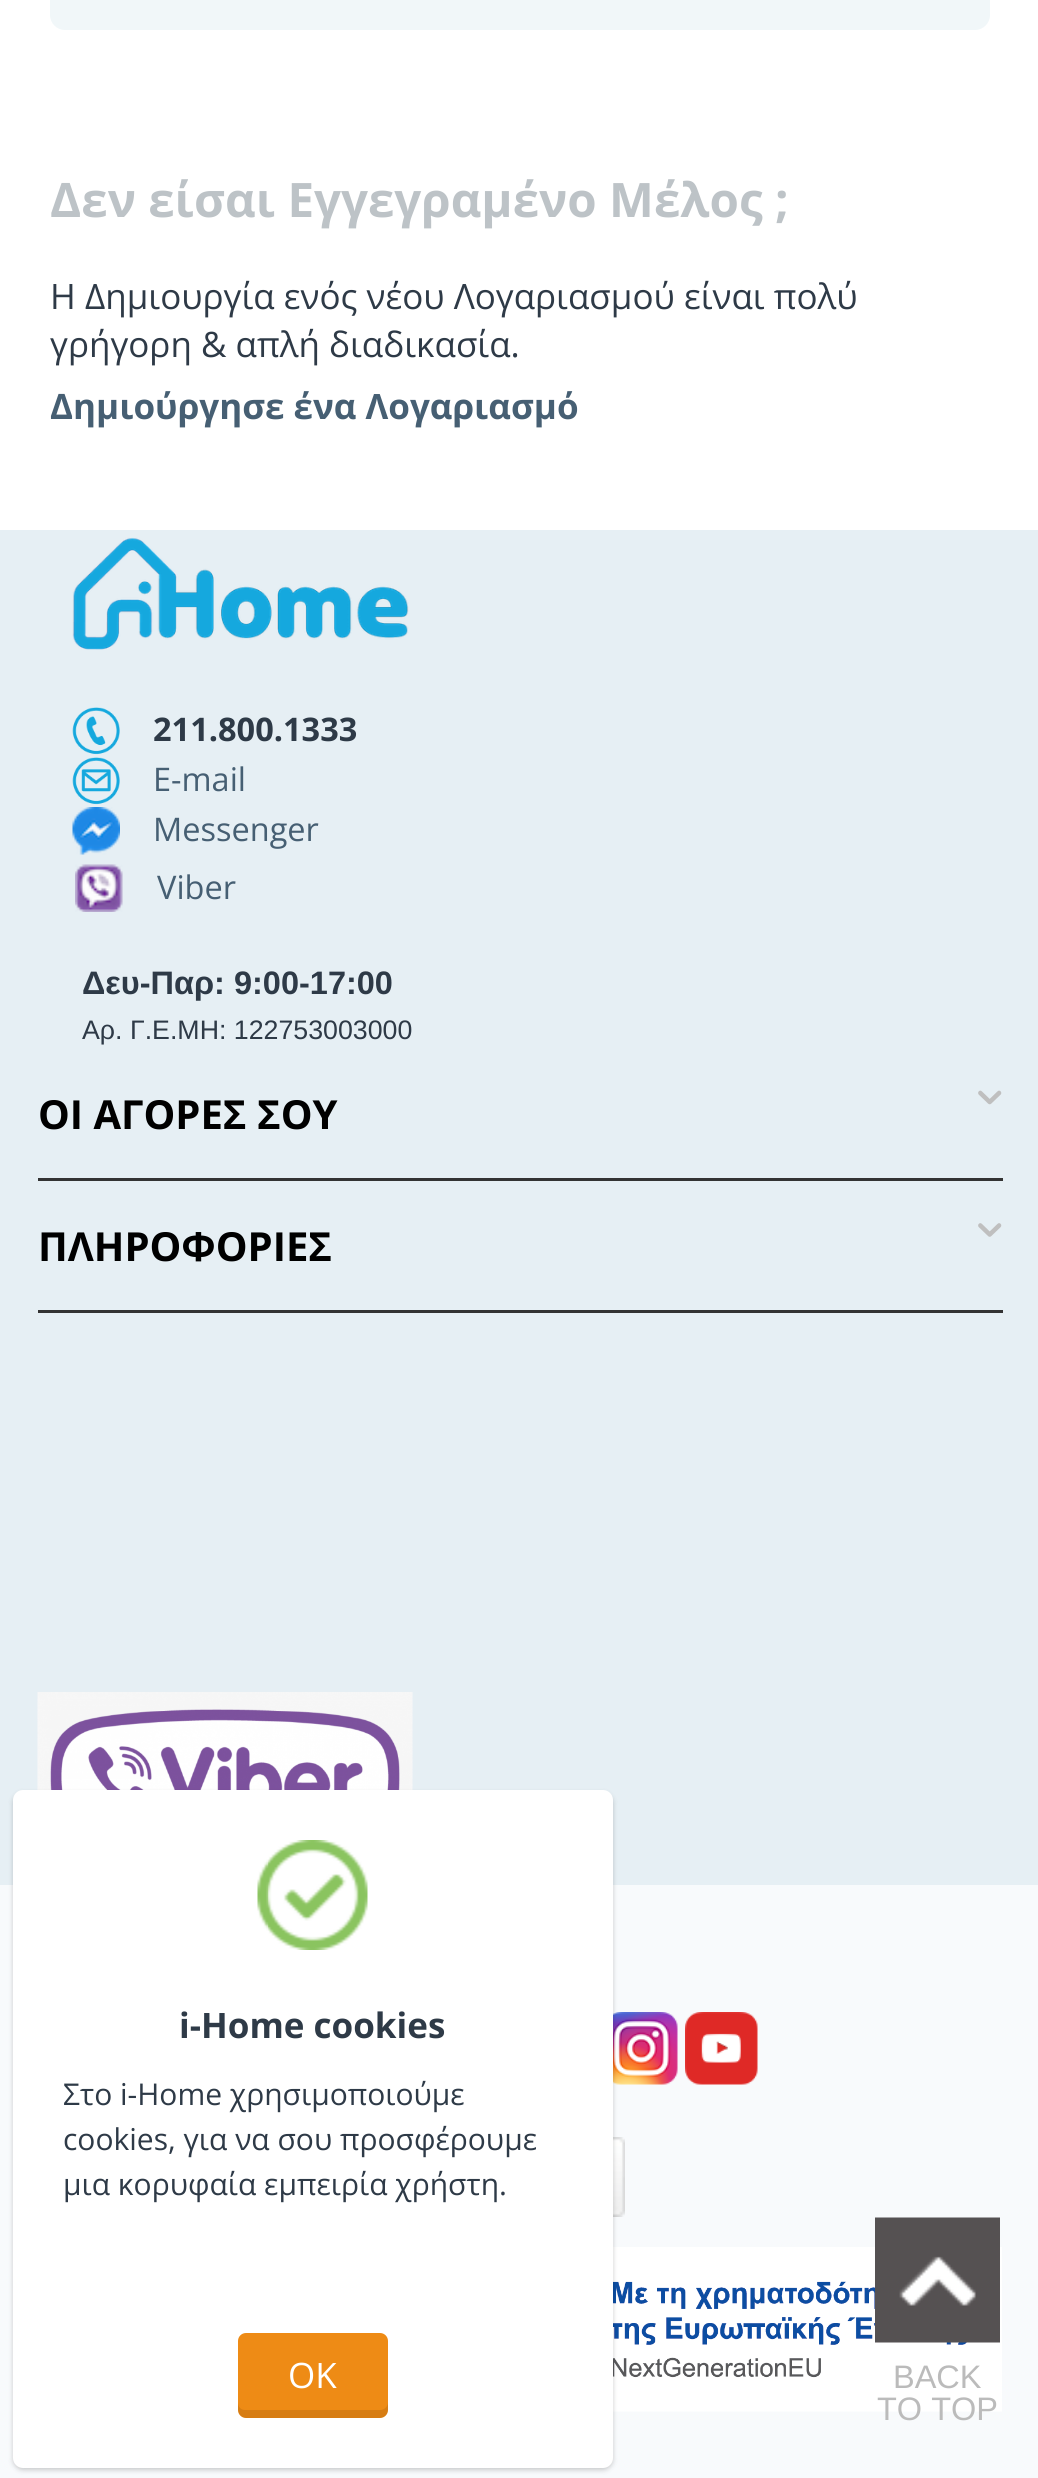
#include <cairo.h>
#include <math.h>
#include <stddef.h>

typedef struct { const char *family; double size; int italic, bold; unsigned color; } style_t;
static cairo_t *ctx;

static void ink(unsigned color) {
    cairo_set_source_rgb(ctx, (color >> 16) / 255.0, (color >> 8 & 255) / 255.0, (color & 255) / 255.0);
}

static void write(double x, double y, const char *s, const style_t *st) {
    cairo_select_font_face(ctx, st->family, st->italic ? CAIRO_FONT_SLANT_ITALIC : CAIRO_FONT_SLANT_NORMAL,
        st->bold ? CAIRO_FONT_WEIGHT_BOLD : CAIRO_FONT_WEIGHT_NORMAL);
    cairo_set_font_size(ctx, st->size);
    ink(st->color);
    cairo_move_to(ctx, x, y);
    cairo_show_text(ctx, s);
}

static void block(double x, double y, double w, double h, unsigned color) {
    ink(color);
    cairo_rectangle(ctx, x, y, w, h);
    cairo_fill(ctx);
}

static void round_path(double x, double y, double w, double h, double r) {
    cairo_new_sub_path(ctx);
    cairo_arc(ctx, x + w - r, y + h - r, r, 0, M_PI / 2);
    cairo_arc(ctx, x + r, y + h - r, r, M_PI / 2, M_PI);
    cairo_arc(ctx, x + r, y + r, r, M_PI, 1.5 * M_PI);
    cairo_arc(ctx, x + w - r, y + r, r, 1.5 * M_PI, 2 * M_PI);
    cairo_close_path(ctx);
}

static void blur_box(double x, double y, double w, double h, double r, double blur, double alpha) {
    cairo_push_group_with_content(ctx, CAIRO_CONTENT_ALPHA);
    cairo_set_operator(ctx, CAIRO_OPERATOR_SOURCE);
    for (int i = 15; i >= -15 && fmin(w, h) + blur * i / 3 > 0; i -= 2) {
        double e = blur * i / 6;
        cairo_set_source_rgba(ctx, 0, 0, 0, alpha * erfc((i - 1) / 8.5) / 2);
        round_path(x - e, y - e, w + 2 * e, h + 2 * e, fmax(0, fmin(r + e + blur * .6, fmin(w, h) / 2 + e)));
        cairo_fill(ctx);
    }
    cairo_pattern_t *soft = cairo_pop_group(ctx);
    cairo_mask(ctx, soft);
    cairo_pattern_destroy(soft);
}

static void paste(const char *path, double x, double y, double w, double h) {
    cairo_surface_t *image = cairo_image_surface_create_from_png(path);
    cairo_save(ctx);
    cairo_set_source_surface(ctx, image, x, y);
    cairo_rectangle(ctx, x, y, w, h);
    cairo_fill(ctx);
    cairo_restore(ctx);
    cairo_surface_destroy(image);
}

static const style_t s1 = {"Open Sans", 47.5, 0, 1, 0xbdc3c7};
static const style_t s2 = {"Open Sans", 35, 0, 0, 0x2e3a47};
static const style_t s3 = {"Open Sans", 35, 0, 1, 0x465f73};
static const style_t s4 = {"Open Sans", 32.5, 0, 1, 0x2e3a47};
static const style_t s5 = {"Open Sans", 32.5, 0, 0, 0x465f73};
static const style_t s6 = {"Liberation Sans", 32.5, 0, 1, 0x2e3a47};
static const style_t s7 = {"Liberation Sans", 26.75, 0, 0, 0x2e3a47};
static const style_t s8 = {"Open Sans", 40, 0, 1, 0x000000};
static const style_t s9 = {"Open Sans", 35, 0, 1, 0x2e3a47};
static const style_t s10 = {"Open Sans", 30, 0, 0, 0x2e3a47};
static const style_t s11 = {"Open Sans", 35, 0, 0, 0xffffff};
static const style_t s12 = {"Liberation Sans", 32.5, 0, 0, 0xbbbbbb};

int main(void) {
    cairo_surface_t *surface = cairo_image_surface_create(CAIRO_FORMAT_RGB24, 1038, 2478);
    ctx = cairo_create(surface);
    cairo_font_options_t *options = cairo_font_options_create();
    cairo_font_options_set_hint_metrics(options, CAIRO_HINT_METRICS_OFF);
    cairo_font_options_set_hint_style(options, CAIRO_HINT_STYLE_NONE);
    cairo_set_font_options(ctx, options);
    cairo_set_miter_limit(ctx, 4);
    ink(0xffffff);
    cairo_paint(ctx);
    ink(0xf1f7f9);
    round_path(50, -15, 940, 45, 15);
    cairo_fill(ctx);
    write(50, 217, "Δεν είσαι Εγγεγραμένο Μέλος ;", &s1);
    write(50, 309, "Η Δημιουργία ενός νέου Λογαριασμού είναι πολύ", &s2);
    write(50, 357, "γρήγορη & απλή διαδικασία.", &s2);
    write(50, 419, "Δημιούργησε ένα Λογαριασμό", &s3);
    block(0, 530, 1038, 1355, 0xe6eff4);
    paste("pic1.png", 72, 537, 337, 113);
    paste("pic2.png", 72, 707, 48, 48);
    write(153, 741, "211.800.1333", &s4);
    paste("pic3.png", 72, 757, 48, 48);
    write(153, 791, "E-mail", &s5);
    paste("pic4.png", 72, 807, 48, 48);
    write(153, 841, "Messenger", &s5);
    paste("pic5.png", 75, 864, 48, 48);
    write(157, 899, "Viber", &s5);
    write(82, 994, "Δευ-Παρ: 9:00-17:00", &s6);
    write(82, 1039, "Αρ. Γ.Ε.ΜΗ: 122753003000", &s7);
    block(38, 1178, 965, 3, 0x333333);
    paste("pic6.png", 978, 1090, 24, 15);
    write(38, 1129, "ΟΙ ΑΓΟΡΕΣ ΣΟΥ", &s8);
    block(38, 1310, 965, 3, 0x333333);
    paste("pic7.png", 978, 1223, 24, 14);
    write(38, 1261, "ΠΛΗΡΟΦΟΡΙΕΣ", &s8);
    paste("pic8.png", 37, 1692, 376, 98);
    block(0, 1885, 1038, 593, 0xf8fafc);
    paste("pic9.png", 613, 2012, 65, 73);
    paste("pic10.png", 685, 2012, 73, 73);
    paste("pic11.png", 613, 2137, 12, 80);
    paste("pic12.png", 613, 2247, 389, 165);
    ink(0x000000);
    blur_box(13, 1793, 600, 677, 10, 2.5, 0.2);
    ink(0xffffff);
    round_path(13, 1790, 600, 678, 10);
    cairo_fill(ctx);
    paste("pic13.png", 257, 1840, 111, 110);
    write(179, 2038, "i-Home cookies", &s9);
    write(63, 2105, "Στο i-Home χρησιμοποιούμε", &s10);
    write(63, 2150, "cookies, για να σου προσφέρουμε", &s10);
    write(63, 2195, "μια κορυφαία εμπειρία χρήστη.", &s10);
    ink(0xee8b15);
    round_path(238, 2333, 150, 85, 8);
    cairo_fill(ctx);
    cairo_set_source_rgba(ctx, 0, 0, 0, 0.1);
    cairo_new_path(ctx);
    cairo_move_to(ctx, 238, 2402);
    cairo_line_to(ctx, 238, 2410);
    cairo_curve_to(ctx, 238, 2414, 242, 2418, 246, 2418);
    cairo_line_to(ctx, 380, 2418);
    cairo_curve_to(ctx, 384, 2418, 388, 2414, 388, 2410);
    cairo_line_to(ctx, 388, 2402);
    cairo_curve_to(ctx, 388, 2407, 384, 2410, 380, 2410);
    cairo_line_to(ctx, 245, 2410);
    cairo_curve_to(ctx, 241, 2410, 238, 2407, 238, 2402);
    cairo_close_path(ctx);
    cairo_fill(ctx);
    write(288, 2388, "OK", &s11);
    paste("pic14.png", 875, 2217, 125, 126);
    write(893, 2388, "BACK", &s12);
    write(877, 2420, "TO TOP", &s12);
    cairo_surface_write_to_png(surface, "screenshot.png");
    cairo_font_options_destroy(options);
    cairo_destroy(ctx);
    cairo_surface_destroy(surface);
    return 0;
}
